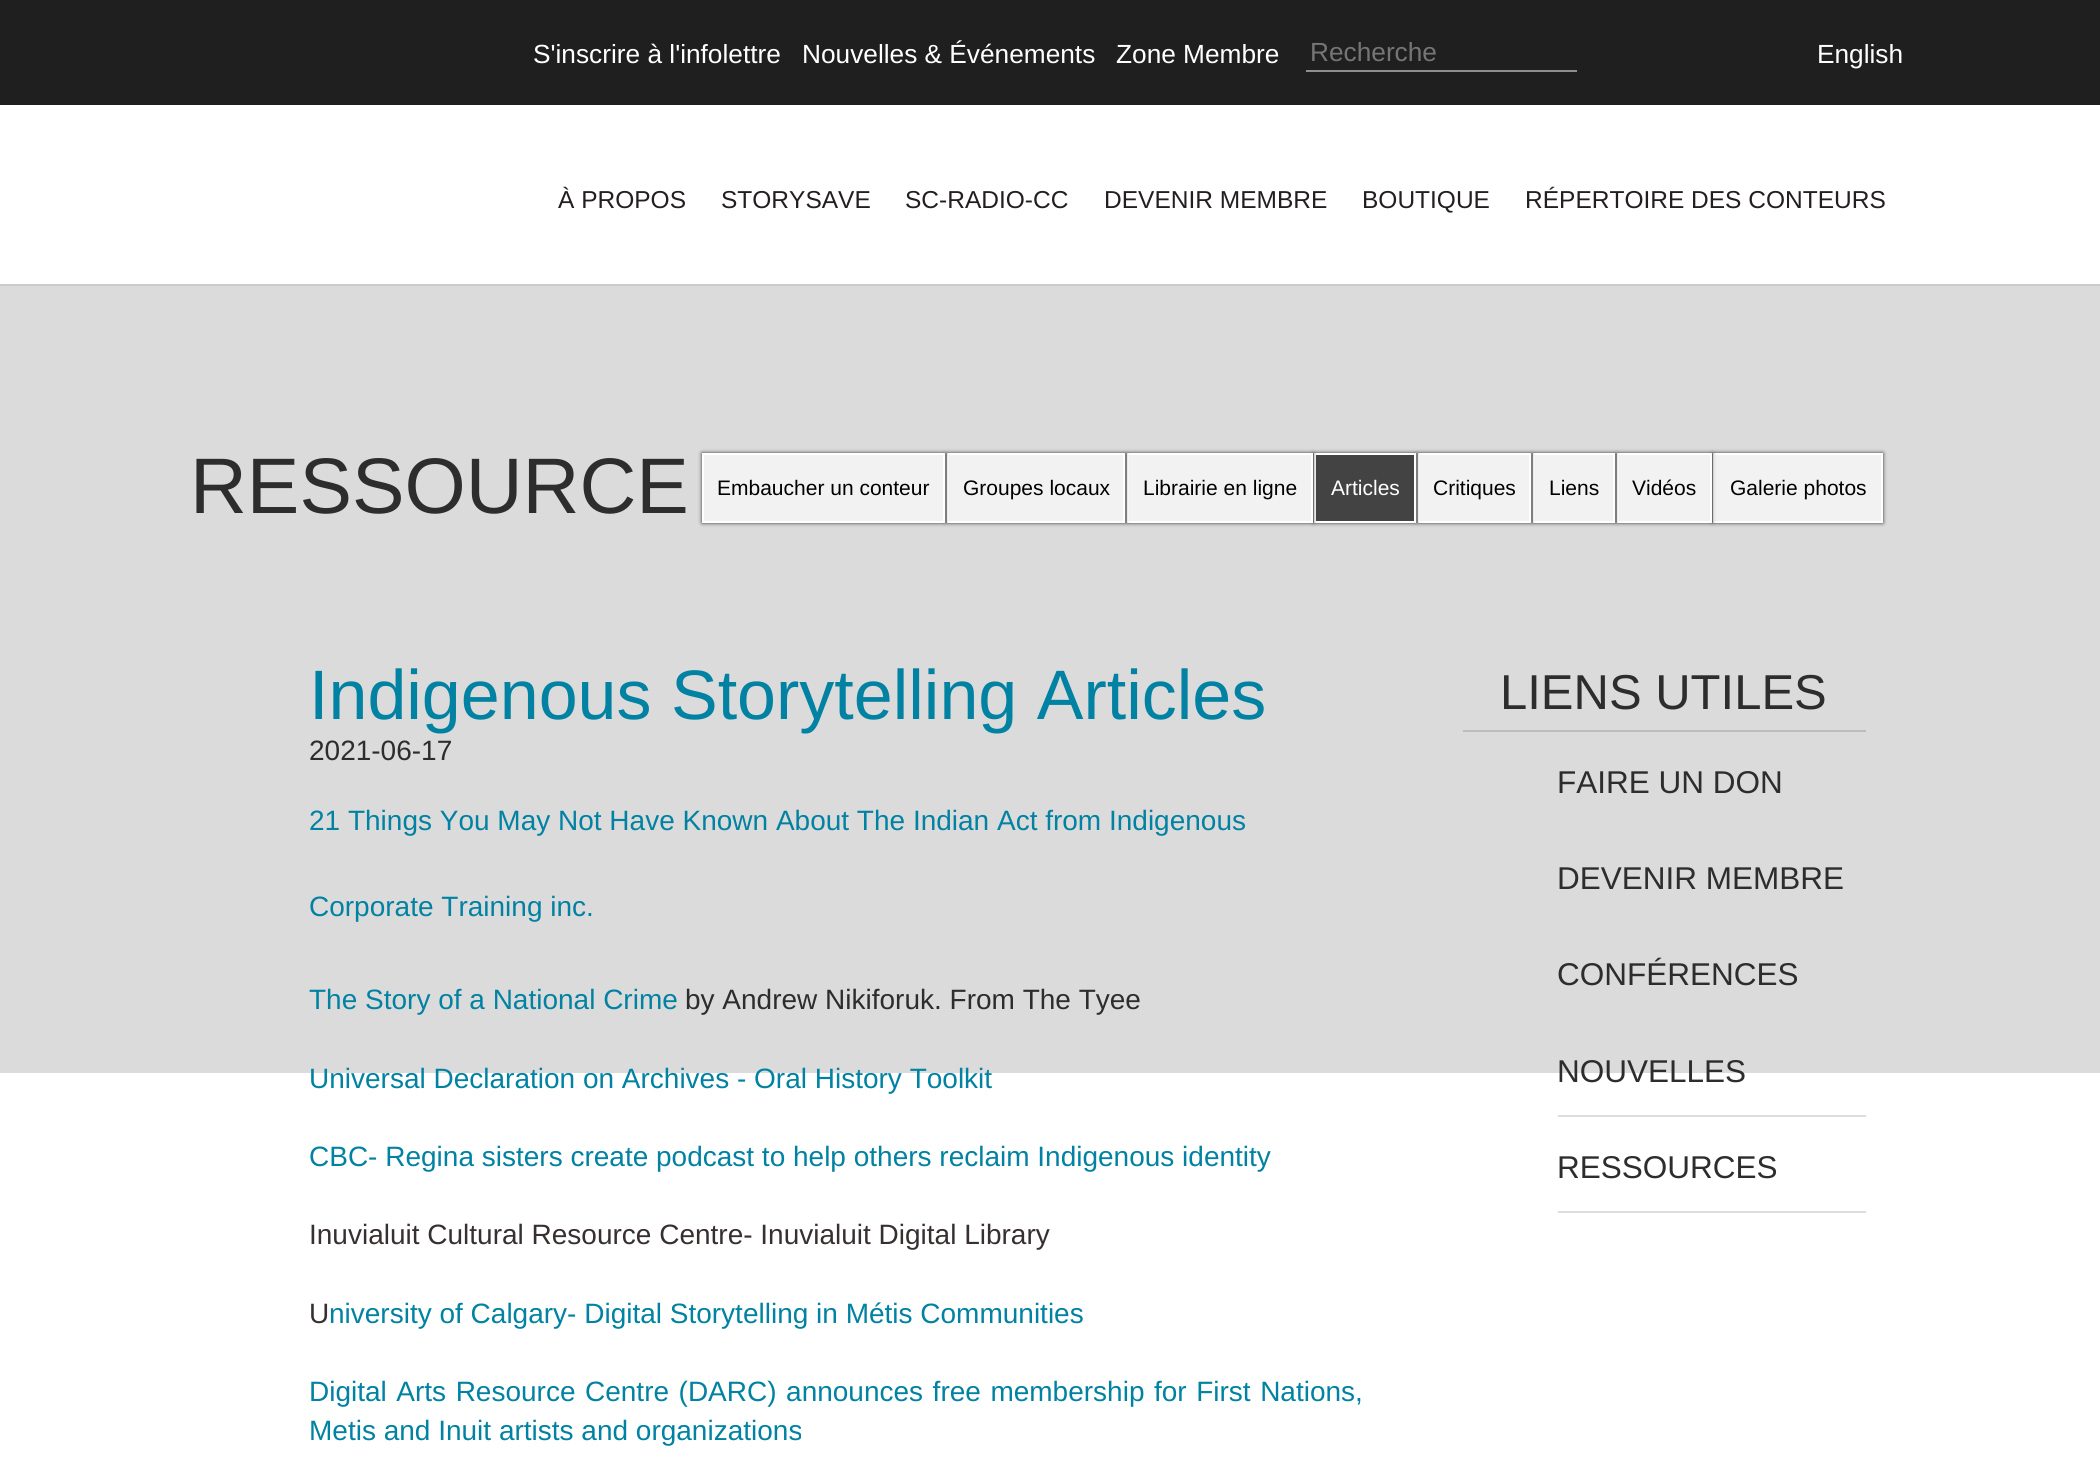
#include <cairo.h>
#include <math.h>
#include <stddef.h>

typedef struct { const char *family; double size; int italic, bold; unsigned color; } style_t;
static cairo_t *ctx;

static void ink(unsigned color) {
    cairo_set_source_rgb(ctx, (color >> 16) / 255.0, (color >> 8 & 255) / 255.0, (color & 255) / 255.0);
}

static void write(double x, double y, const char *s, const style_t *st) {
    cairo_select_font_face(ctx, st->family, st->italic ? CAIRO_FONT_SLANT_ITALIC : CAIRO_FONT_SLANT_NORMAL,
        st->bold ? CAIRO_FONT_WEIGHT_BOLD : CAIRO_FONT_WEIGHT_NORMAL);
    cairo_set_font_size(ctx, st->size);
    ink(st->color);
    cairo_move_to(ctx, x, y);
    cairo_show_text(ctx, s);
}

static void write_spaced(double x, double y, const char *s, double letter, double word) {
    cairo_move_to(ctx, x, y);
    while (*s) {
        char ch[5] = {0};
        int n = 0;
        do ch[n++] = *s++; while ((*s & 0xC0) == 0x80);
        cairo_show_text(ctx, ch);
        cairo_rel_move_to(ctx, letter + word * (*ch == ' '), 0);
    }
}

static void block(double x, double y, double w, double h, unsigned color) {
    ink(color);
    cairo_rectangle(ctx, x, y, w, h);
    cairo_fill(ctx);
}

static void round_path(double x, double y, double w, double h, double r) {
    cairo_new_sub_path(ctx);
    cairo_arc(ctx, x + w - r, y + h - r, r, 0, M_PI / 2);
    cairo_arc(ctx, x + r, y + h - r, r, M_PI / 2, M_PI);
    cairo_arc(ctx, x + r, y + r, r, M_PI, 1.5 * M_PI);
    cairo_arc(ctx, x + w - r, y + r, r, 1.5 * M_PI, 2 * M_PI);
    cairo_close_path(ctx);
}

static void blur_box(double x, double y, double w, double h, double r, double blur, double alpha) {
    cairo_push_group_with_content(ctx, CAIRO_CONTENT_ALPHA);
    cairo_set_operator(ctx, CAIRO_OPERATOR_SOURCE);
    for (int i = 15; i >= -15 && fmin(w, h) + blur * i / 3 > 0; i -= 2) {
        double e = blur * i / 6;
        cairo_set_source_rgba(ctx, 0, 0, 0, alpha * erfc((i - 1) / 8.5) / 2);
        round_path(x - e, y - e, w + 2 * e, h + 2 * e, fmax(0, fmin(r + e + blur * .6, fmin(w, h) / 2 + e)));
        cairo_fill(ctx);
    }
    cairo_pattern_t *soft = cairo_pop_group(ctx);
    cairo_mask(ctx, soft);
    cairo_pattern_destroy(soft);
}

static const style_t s1 = {"Liberation Sans", 26.25, 0, 0, 0xffffff};
static const style_t s2 = {"Liberation Sans", 26.25, 0, 0, 0x757575};
static const style_t s3 = {"Liberation Sans", 24.5, 0, 0, 0x231f20};
static const style_t s4 = {"Liberation Sans", 78.75, 0, 0, 0x2d2d2d};
static const style_t s5 = {"Liberation Sans", 21, 0, 0, 0x000000};
static const style_t s6 = {"Liberation Sans", 21, 0, 0, 0xffffff};
static const style_t s7 = {"Liberation Sans", 70, 0, 0, 0x0182a2};
static const style_t s8 = {"Liberation Sans", 28, 0, 0, 0x2d2d2d};
static const style_t s9 = {"Liberation Sans", 28, 0, 0, 0x0182a2};
static const style_t s10 = {"Liberation Sans", 28, 0, 0, 0x383030};
static const style_t s11 = {"Liberation Sans", 49, 0, 0, 0x2d2d2d};
static const style_t s12 = {"Liberation Sans", 31.5, 0, 0, 0x2d2d2d};

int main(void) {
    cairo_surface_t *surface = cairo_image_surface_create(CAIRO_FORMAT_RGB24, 2100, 1463);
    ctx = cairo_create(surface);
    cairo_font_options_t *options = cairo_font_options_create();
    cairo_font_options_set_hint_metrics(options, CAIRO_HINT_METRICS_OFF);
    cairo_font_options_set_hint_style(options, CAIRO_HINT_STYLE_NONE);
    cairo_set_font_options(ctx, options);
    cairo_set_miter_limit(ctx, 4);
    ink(0xffffff);
    cairo_paint(ctx);
    block(0, 0, 2100, 105, 0x1f1f1f);
    write(533, 63, "S'inscrire à l'infolettre", &s1);
    write(802, 63, "Nouvelles & Événements", &s1);
    write(1116, 63, "Zone Membre", &s1);
    block(1306, 70, 271, 2, 0x8f8f8f);
    write(1310, 61, "Recherche", &s2);
    write(1817, 63, "English", &s1);
    block(0, 284, 2100, 2, 0xcccccc);
    write(558, 208, "À PROPOS", &s3);
    write(721, 208, "STORYSAVE", &s3);
    write(905, 208, "SC-RADIO-CC", &s3);
    write(1104, 208, "DEVENIR MEMBRE", &s3);
    write(1362, 208, "BOUTIQUE", &s3);
    write(1525, 208, "RÉPERTOIRE DES CONTEURS", &s3);
    block(0, 286, 2100, 787, 0xdbdbdb);
    write(190, 513, "RESSOURCE", &s4);
    ink(0x333333);
    blur_box(1713, 453, 170, 70, 0, 2, 1);
    ink(0xf2f2f2);
    cairo_rectangle(ctx, 1714, 454, 168, 68);
    cairo_fill_preserve(ctx);
    ink(0xffffff);
    cairo_stroke(ctx);
    ink(0x333333);
    blur_box(1617, 453, 95, 70, 0, 2, 1);
    ink(0xf2f2f2);
    cairo_rectangle(ctx, 1618, 454, 93, 68);
    cairo_fill_preserve(ctx);
    ink(0xffffff);
    cairo_stroke(ctx);
    ink(0x333333);
    blur_box(1533, 453, 82, 70, 0, 2, 1);
    ink(0xf2f2f2);
    cairo_rectangle(ctx, 1534, 454, 80, 68);
    cairo_fill_preserve(ctx);
    ink(0xffffff);
    cairo_stroke(ctx);
    ink(0x333333);
    blur_box(1418, 453, 113, 70, 0, 2, 1);
    ink(0xf2f2f2);
    cairo_rectangle(ctx, 1419, 454, 111, 68);
    cairo_fill_preserve(ctx);
    ink(0xffffff);
    cairo_stroke(ctx);
    ink(0x333333);
    blur_box(1314, 453, 102, 70, 0, 2, 1);
    ink(0x434343);
    cairo_rectangle(ctx, 1315, 454, 100, 68);
    cairo_fill_preserve(ctx);
    ink(0xffffff);
    cairo_stroke(ctx);
    ink(0x333333);
    blur_box(1127, 453, 186, 70, 0, 2, 1);
    ink(0xf2f2f2);
    cairo_rectangle(ctx, 1128, 454, 184, 68);
    cairo_fill_preserve(ctx);
    ink(0xffffff);
    cairo_stroke(ctx);
    ink(0x333333);
    blur_box(947, 453, 178, 70, 0, 2, 1);
    ink(0xf2f2f2);
    cairo_rectangle(ctx, 948, 454, 176, 68);
    cairo_fill_preserve(ctx);
    ink(0xffffff);
    cairo_stroke(ctx);
    ink(0x333333);
    blur_box(702, 453, 243, 70, 0, 2, 1);
    ink(0xf2f2f2);
    cairo_rectangle(ctx, 703, 454, 241, 68);
    cairo_fill_preserve(ctx);
    ink(0xffffff);
    cairo_stroke(ctx);
    write(717, 495, "Embaucher un conteur", &s5);
    write(963, 495, "Groupes locaux", &s5);
    write(1143, 495, "Librairie en ligne", &s5);
    write(1331, 495, "Articles", &s6);
    write(1433, 495, "Critiques", &s5);
    write(1549, 495, "Liens", &s5);
    write(1632, 495, "Vidéos", &s5);
    write(1730, 495, "Galerie photos", &s5);
    write(309, 719, "Indigenous Storytelling Articles", &s7);
    write(309, 760, "2021-06-17", &s8);
    write(309, 830, "21 Things You May Not Have Known About The Indian Act from Indigenous", &s9);
    write(309, 916, "Corporate Training inc.", &s9);
    write(309, 1009, "The Story of a National Crime", &s9);
    write(685, 1009, "by Andrew Nikiforuk. From The Tyee", &s8);
    write(309, 1088, "Universal Declaration on Archives - Oral History Toolkit", &s9);
    write(309, 1166, "CBC- Regina sisters create podcast to help others reclaim Indigenous identity", &s9);
    write(309, 1244, "Inuvialuit Cultural Resource Centre- Inuvialuit Digital Library", &s10);
    write(309, 1323, "U", &s10);
    write(329, 1323, "niversity of Calgary- Digital Storytelling in Métis Communities", &s9);
    write_spaced(309, 1401, "Digital Arts Resource Centre (DARC) announces free membership for First Nations,", 0, 1.75);
    write(309, 1440, "Metis and Inuit artists and organizations", &s9);
    block(1463, 730, 403, 2, 0xbcbcbc);
    write(1500, 709, "LIENS UTILES", &s11);
    write(1557, 793, "FAIRE UN DON", &s12);
    write(1557, 889, "DEVENIR MEMBRE", &s12);
    write(1557, 985, "CONFÉRENCES", &s12);
    block(1558, 1115, 308, 2, 0xdddddd);
    write(1557, 1082, "NOUVELLES", &s12);
    block(1558, 1211, 308, 2, 0xdddddd);
    write(1557, 1178, "RESSOURCES", &s12);
    cairo_surface_write_to_png(surface, "screenshot.png");
    cairo_font_options_destroy(options);
    cairo_destroy(ctx);
    cairo_surface_destroy(surface);
    return 0;
}
